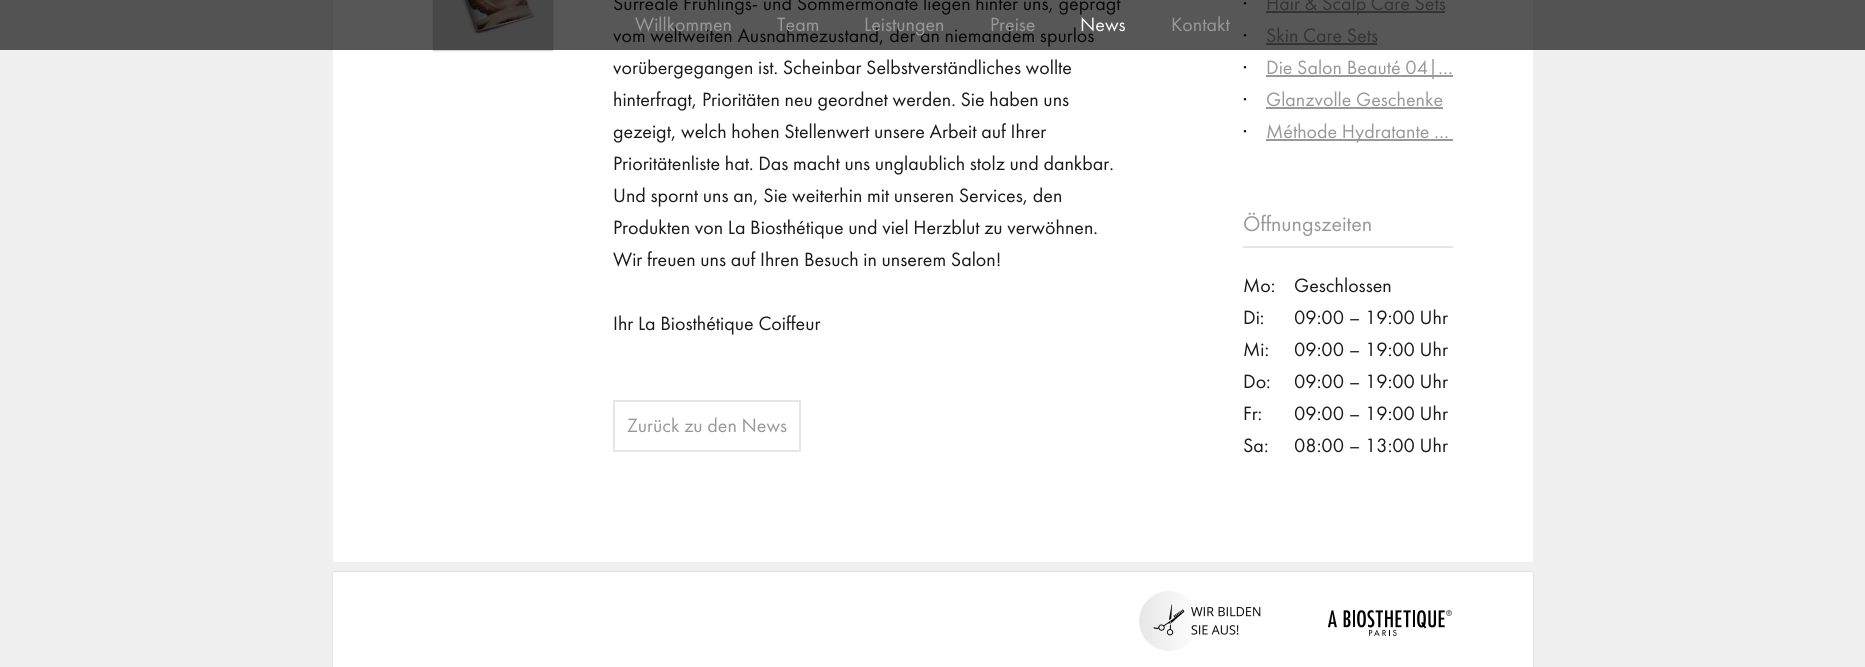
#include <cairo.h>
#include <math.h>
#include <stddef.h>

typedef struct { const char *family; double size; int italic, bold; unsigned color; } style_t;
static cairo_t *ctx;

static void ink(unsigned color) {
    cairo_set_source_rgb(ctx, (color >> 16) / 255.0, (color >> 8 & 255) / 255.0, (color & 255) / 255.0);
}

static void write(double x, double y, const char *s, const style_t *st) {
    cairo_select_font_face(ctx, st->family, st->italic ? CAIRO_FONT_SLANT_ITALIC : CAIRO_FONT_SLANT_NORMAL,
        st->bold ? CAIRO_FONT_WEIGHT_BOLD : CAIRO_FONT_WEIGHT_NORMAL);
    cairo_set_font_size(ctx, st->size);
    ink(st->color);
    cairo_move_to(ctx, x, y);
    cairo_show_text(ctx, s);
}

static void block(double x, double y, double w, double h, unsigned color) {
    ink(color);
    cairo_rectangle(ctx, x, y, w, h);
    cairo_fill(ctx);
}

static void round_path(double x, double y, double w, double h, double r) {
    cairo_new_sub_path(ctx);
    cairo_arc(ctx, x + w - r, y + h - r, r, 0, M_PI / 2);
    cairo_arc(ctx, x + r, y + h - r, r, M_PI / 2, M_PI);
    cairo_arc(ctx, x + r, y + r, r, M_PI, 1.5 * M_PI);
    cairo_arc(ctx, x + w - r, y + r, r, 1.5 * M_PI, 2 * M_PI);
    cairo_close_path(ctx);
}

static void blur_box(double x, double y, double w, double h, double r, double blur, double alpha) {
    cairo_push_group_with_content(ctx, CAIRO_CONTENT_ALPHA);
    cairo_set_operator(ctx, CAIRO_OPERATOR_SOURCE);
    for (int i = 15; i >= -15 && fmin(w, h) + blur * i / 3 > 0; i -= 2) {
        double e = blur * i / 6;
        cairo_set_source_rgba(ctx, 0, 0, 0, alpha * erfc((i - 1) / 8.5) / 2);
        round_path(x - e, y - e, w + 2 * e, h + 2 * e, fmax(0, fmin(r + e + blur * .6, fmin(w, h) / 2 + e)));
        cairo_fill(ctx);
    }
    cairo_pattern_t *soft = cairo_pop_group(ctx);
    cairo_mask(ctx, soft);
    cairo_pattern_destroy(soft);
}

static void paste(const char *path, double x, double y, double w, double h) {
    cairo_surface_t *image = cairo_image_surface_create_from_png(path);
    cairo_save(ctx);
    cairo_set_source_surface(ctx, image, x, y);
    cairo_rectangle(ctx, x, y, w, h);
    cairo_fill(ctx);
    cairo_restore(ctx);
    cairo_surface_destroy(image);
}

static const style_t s1 = {"Futura PT", 20, 0, 0, 0x1a1a1a};
static const style_t s2 = {"Futura PT", 20, 0, 0, 0x989898};
static const style_t s3 = {"Futura PT", 22, 0, 0, 0x989898};
static const style_t s4 = {"Futura PT", 20, 0, 0, 0xfafafa};

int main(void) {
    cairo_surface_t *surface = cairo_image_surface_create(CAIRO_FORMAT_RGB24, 1865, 667);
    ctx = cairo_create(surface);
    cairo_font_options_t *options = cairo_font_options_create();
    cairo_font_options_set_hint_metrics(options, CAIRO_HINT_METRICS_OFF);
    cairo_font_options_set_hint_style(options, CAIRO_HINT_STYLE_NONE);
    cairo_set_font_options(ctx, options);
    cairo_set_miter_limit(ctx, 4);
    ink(0xf0f0f0);
    cairo_paint(ctx);
    ink(0xffffff);
    round_path(333, -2, 1200, 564, 2);
    cairo_fill(ctx);
    ink(0x000000);
    blur_box(433, -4, 120, 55, 1, 1, 0.15);
    paste("pic1.png", 433, 0, 120, 51);
    cairo_set_source_rgba(ctx, 0, 0, 0, 0.08);
    cairo_rectangle(ctx, 433, 0, 120, 51);
    cairo_fill(ctx);
    write(613, 10, "Surreale Frühlings- und Sommermonate liegen hinter uns, geprägt", &s1);
    write(613, 42, "vom weltweiten Ausnahmezustand, der an niemandem spurlos", &s1);
    write(613, 74, "vorübergegangen ist. Scheinbar Selbstverständliches wollte", &s1);
    write(613, 106, "hinterfragt, Prioritäten neu geordnet werden. Sie haben uns", &s1);
    write(613, 138, "gezeigt, welch hohen Stellenwert unsere Arbeit auf Ihrer", &s1);
    write(613, 170, "Prioritätenliste hat. Das macht uns unglaublich stolz und dankbar.", &s1);
    write(613, 202, "Und spornt uns an, Sie weiterhin mit unseren Services, den", &s1);
    write(613, 234, "Produkten von La Biosthétique und viel Herzblut zu verwöhnen.", &s1);
    write(613, 266, "Wir freuen uns auf Ihren Besuch in unserem Salon!", &s1);
    write(613, 330, "Ihr La Biosthétique Coiffeur", &s1);
    cairo_rectangle(ctx, 614, 401, 186, 50);
    ink(0xe6e6e6);
    cairo_stroke(ctx);
    write(627, 432, "Zurück zu den News", &s2);
    write(1243, 10, "·", &s1);
    block(1266, 11, 179, 2, 0x999999);
    write(1266, 10, "Hair & Scalp Care Sets", &s2);
    write(1243, 42, "·", &s1);
    write(1266, 42, "Skin Care Sets", &s2);
    block(1266, 43, 111, 2, 0x999999);
    write(1243, 74, "·", &s1);
    block(1266, 75, 187, 2, 0x999999);
    write(1266, 74, "Die Salon Beauté 04|…", &s2);
    write(1243, 106, "·", &s1);
    write(1266, 106, "Glanzvolle Geschenke", &s2);
    block(1266, 107, 177, 2, 0x999999);
    write(1243, 138, "·", &s1);
    block(1266, 139, 187, 2, 0x999999);
    write(1266, 138, "Méthode Hydratante …", &s2);
    block(1243, 246, 210, 2, 0xe6e6e6);
    write(1243, 231, "Öffnungszeiten", &s3);
    write(1243, 292, "Mo:", &s1);
    write(1294, 292, "Geschlossen", &s1);
    write(1243, 324, "Di:", &s1);
    write(1294, 324, "09:00 – 19:00 Uhr", &s1);
    write(1243, 356, "Mi:", &s1);
    write(1294, 356, "09:00 – 19:00 Uhr", &s1);
    write(1243, 388, "Do:", &s1);
    write(1294, 388, "09:00 – 19:00 Uhr", &s1);
    write(1243, 420, "Fr:", &s1);
    write(1294, 420, "09:00 – 19:00 Uhr", &s1);
    write(1243, 452, "Sa:", &s1);
    write(1294, 452, "08:00 – 13:00 Uhr", &s1);
    cairo_set_source_rgba(ctx, 0, 0, 0, 0.66);
    cairo_rectangle(ctx, 0, 0, 1865, 50);
    cairo_fill(ctx);
    write(635, 31, "Willkommen", &s2);
    write(777, 31, "Team", &s2);
    write(864, 31, "Leistungen", &s2);
    write(990, 31, "Preise", &s2);
    write(1080, 31, "News", &s4);
    write(1171, 31, "Kontakt", &s2);
    ink(0x000000);
    blur_box(333, 572, 1200, 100, 2, 1, 0.15);
    ink(0xffffff);
    round_path(333, 572, 1200, 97, 2);
    cairo_fill(ctx);
    paste("pic2.png", 1139, 591, 122, 60);
    paste("pic3.png", 1328, 610, 124, 26);
    cairo_surface_write_to_png(surface, "screenshot.png");
    cairo_font_options_destroy(options);
    cairo_destroy(ctx);
    cairo_surface_destroy(surface);
    return 0;
}
